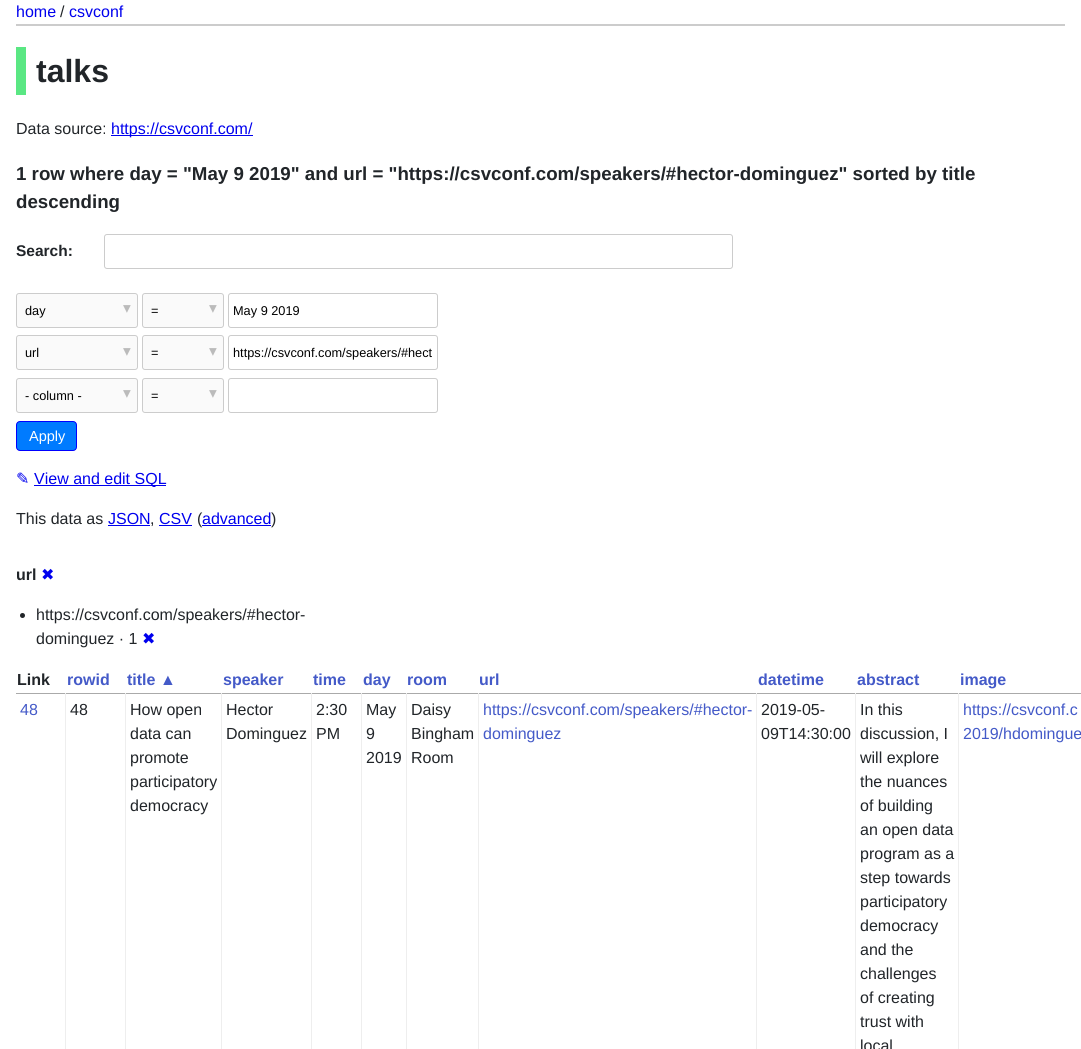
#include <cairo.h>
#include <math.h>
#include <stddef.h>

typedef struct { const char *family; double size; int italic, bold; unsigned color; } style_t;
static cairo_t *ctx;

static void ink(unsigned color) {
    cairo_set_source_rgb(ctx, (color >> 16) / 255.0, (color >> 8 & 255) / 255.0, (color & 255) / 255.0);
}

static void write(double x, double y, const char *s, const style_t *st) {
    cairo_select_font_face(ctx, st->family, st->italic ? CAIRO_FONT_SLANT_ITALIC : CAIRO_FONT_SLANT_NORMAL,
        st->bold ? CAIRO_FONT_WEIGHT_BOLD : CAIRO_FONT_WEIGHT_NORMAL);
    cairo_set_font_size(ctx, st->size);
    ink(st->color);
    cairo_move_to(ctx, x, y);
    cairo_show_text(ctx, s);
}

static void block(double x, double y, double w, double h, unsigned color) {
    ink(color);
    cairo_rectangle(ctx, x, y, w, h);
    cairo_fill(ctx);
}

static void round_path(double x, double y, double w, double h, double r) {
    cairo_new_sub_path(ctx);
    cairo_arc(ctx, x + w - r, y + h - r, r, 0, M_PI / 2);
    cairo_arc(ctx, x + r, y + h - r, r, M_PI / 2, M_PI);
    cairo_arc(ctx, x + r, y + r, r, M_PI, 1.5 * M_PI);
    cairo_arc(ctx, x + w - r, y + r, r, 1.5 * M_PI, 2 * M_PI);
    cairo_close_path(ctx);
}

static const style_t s1 = {"Liberation Sans", 16, 0, 0, 0x0000ee};
static const style_t s2 = {"Liberation Sans", 16, 0, 0, 0x212529};
static const style_t s3 = {"Liberation Sans", 32, 0, 1, 0x212529};
static const style_t s4 = {"Liberation Sans", 18.72, 0, 1, 0x212529};
static const style_t s5 = {"Liberation Sans", 15.5, 0, 1, 0x212529};
static const style_t s6 = {"Liberation Sans", 12.75, 0, 0, 0x000000};
static const style_t s7 = {"DejaVu Sans", 15.5, 0, 0, 0xbbbbbb};
static const style_t s8 = {"Liberation Sans", 14.5, 0, 0, 0xffffff};
static const style_t s9 = {"DejaVu Sans", 16, 0, 0, 0x0000ee};
static const style_t s10 = {"Liberation Sans", 16, 0, 1, 0x212529};
static const style_t s11 = {"Liberation Sans", 16, 0, 1, 0x445ac8};
static const style_t s12 = {"Liberation Sans", 16, 0, 0, 0x445ac8};

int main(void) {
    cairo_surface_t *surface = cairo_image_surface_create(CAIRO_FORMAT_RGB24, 1081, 1049);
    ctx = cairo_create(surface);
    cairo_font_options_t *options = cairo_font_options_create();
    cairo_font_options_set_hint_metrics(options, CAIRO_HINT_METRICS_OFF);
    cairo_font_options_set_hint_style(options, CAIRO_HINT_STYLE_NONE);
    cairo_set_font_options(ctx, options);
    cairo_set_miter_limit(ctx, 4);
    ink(0xffffff);
    cairo_paint(ctx);
    block(16, 24, 1049, 2, 0xcccccc);
    write(16, 17, "home", &s1);
    write(60, 17, "/", &s2);
    write(69, 17, "csvconf", &s1);
    block(16, 47, 10, 48, 0x5ae783);
    write(36, 82, "talks", &s3);
    write(16, 134, "Data source:", &s2);
    block(111, 135, 142, 1, 0x0000ee);
    write(111, 134, "https://csvconf.com/", &s1);
    write(16, 180, "1 row where day = \"May 9 2019\" and url = \"https://csvconf.com/speakers/#hector-dominguez\" sorted by title", &s4);
    write(16, 208, "descending", &s4);
    write(16, 256, "Search:", &s5);
    round_path(104.5, 234.5, 628, 34, 2.5);
    ink(0xcccccc);
    cairo_set_line_width(ctx, 1);
    cairo_stroke(ctx);
    ink(0xfafafa);
    round_path(16.5, 293.5, 121, 34, 2.5);
    cairo_fill_preserve(ctx);
    ink(0xcccccc);
    cairo_stroke(ctx);
    write(25, 315, "day", &s6);
    write(123, 313, "▾", &s7);
    ink(0xfafafa);
    round_path(142.5, 293.5, 81, 34, 2.5);
    cairo_fill_preserve(ctx);
    ink(0xcccccc);
    cairo_stroke(ctx);
    write(151, 315, "=", &s6);
    write(209, 313, "▾", &s7);
    round_path(228.5, 293.5, 209, 34, 2.5);
    ink(0xcccccc);
    cairo_stroke(ctx);
    write(233, 315, "May 9 2019", &s6);
    ink(0xfafafa);
    round_path(16.5, 335.5, 121, 34, 2.5);
    cairo_fill_preserve(ctx);
    ink(0xcccccc);
    cairo_stroke(ctx);
    write(25, 357, "url", &s6);
    write(123, 356, "▾", &s7);
    ink(0xfafafa);
    round_path(142.5, 335.5, 81, 34, 2.5);
    cairo_fill_preserve(ctx);
    ink(0xcccccc);
    cairo_stroke(ctx);
    write(151, 357, "=", &s6);
    write(209, 356, "▾", &s7);
    round_path(228.5, 335.5, 209, 34, 2.5);
    ink(0xcccccc);
    cairo_stroke(ctx);
    write(233, 357, "https://csvconf.com/speakers/#hect", &s6);
    ink(0xfafafa);
    round_path(16.5, 378.5, 121, 34, 2.5);
    cairo_fill_preserve(ctx);
    ink(0xcccccc);
    cairo_stroke(ctx);
    write(25, 400, "- column -", &s6);
    write(123, 398, "▾", &s7);
    ink(0xfafafa);
    round_path(142.5, 378.5, 81, 34, 2.5);
    cairo_fill_preserve(ctx);
    ink(0xcccccc);
    cairo_stroke(ctx);
    write(151, 400, "=", &s6);
    write(209, 398, "▾", &s7);
    round_path(228.5, 378.5, 209, 34, 2.5);
    ink(0xcccccc);
    cairo_stroke(ctx);
    ink(0x007bff);
    round_path(16.5, 421.5, 60, 29, 3.5);
    cairo_fill_preserve(ctx);
    ink(0x0000ff);
    cairo_stroke(ctx);
    write(29, 441, "Apply", &s8);
    write(16, 484, "✎", &s9);
    block(34, 485, 132, 1, 0x0000ee);
    write(34, 484, "View and edit SQL", &s1);
    write(16, 524, "This data as", &s2);
    write(108, 524, "JSON", &s1);
    block(108, 525, 42, 1, 0x0000ee);
    write(150, 524, ",", &s2);
    write(159, 524, "CSV", &s1);
    block(159, 525, 33, 1, 0x0000ee);
    write(197, 524, "(", &s2);
    write(202, 524, "advanced", &s1);
    block(202, 525, 69, 1, 0x0000ee);
    write(271, 524, ")", &s2);
    write(16, 580, "url", &s10);
    write(41, 580, "✖", &s9);
    ink(0x212529);
    cairo_new_path(ctx);
    cairo_arc(ctx, 22.5, 615.5, 2.5, 0, 2 * M_PI);
    cairo_fill(ctx);
    write(36, 620, "https://csvconf.com/speakers/#hector-", &s2);
    write(36, 644, "dominguez · 1", &s2);
    write(142, 644, "✖", &s9);
    write(17, 685, "Link", &s10);
    write(67, 685, "rowid", &s11);
    write(127, 685, "title ▲", &s11);
    write(223, 685, "speaker", &s11);
    write(313, 685, "time", &s11);
    write(363, 685, "day", &s11);
    write(407, 685, "room", &s11);
    write(479, 685, "url", &s11);
    write(758, 685, "datetime", &s11);
    write(857, 685, "abstract", &s11);
    write(960, 685, "image", &s11);
    block(16, 693, 1065, 1, 0xaaaaaa);
    block(65, 693, 1, 356, 0xeeeeee);
    write(20, 715, "48", &s12);
    block(125, 693, 1, 356, 0xeeeeee);
    write(70, 715, "48", &s2);
    block(221, 693, 1, 356, 0xeeeeee);
    write(130, 715, "How open", &s2);
    write(130, 739, "data can", &s2);
    write(130, 763, "promote", &s2);
    write(130, 787, "participatory", &s2);
    write(130, 811, "democracy", &s2);
    block(311, 693, 1, 356, 0xeeeeee);
    write(226, 715, "Hector", &s2);
    write(226, 739, "Dominguez", &s2);
    block(361, 693, 1, 356, 0xeeeeee);
    write(316, 715, "2:30", &s2);
    write(316, 739, "PM", &s2);
    block(406, 693, 1, 356, 0xeeeeee);
    write(366, 715, "May", &s2);
    write(366, 739, "9", &s2);
    write(366, 763, "2019", &s2);
    block(478, 693, 1, 356, 0xeeeeee);
    write(411, 715, "Daisy", &s2);
    write(411, 739, "Bingham", &s2);
    write(411, 763, "Room", &s2);
    block(756, 693, 1, 356, 0xeeeeee);
    write(483, 715, "https://csvconf.com/speakers/#hector-", &s12);
    write(483, 739, "dominguez", &s12);
    block(855, 693, 1, 356, 0xeeeeee);
    write(761, 715, "2019-05-", &s2);
    write(761, 739, "09T14:30:00", &s2);
    block(958, 693, 1, 356, 0xeeeeee);
    write(860, 715, "In this", &s2);
    write(860, 739, "discussion, I", &s2);
    write(860, 763, "will explore", &s2);
    write(860, 787, "the nuances", &s2);
    write(860, 811, "of building", &s2);
    write(860, 835, "an open data", &s2);
    write(860, 859, "program as a", &s2);
    write(860, 883, "step towards", &s2);
    write(860, 907, "participatory", &s2);
    write(860, 931, "democracy", &s2);
    write(860, 955, "and the", &s2);
    write(860, 979, "challenges", &s2);
    write(860, 1003, "of creating", &s2);
    write(860, 1027, "trust with", &s2);
    write(860, 1051, "local", &s2);
    write(963, 715, "https://csvconf.c", &s12);
    write(963, 739, "2019/hdomingue", &s12);
    cairo_surface_write_to_png(surface, "screenshot.png");
    cairo_font_options_destroy(options);
    cairo_destroy(ctx);
    cairo_surface_destroy(surface);
    return 0;
}
